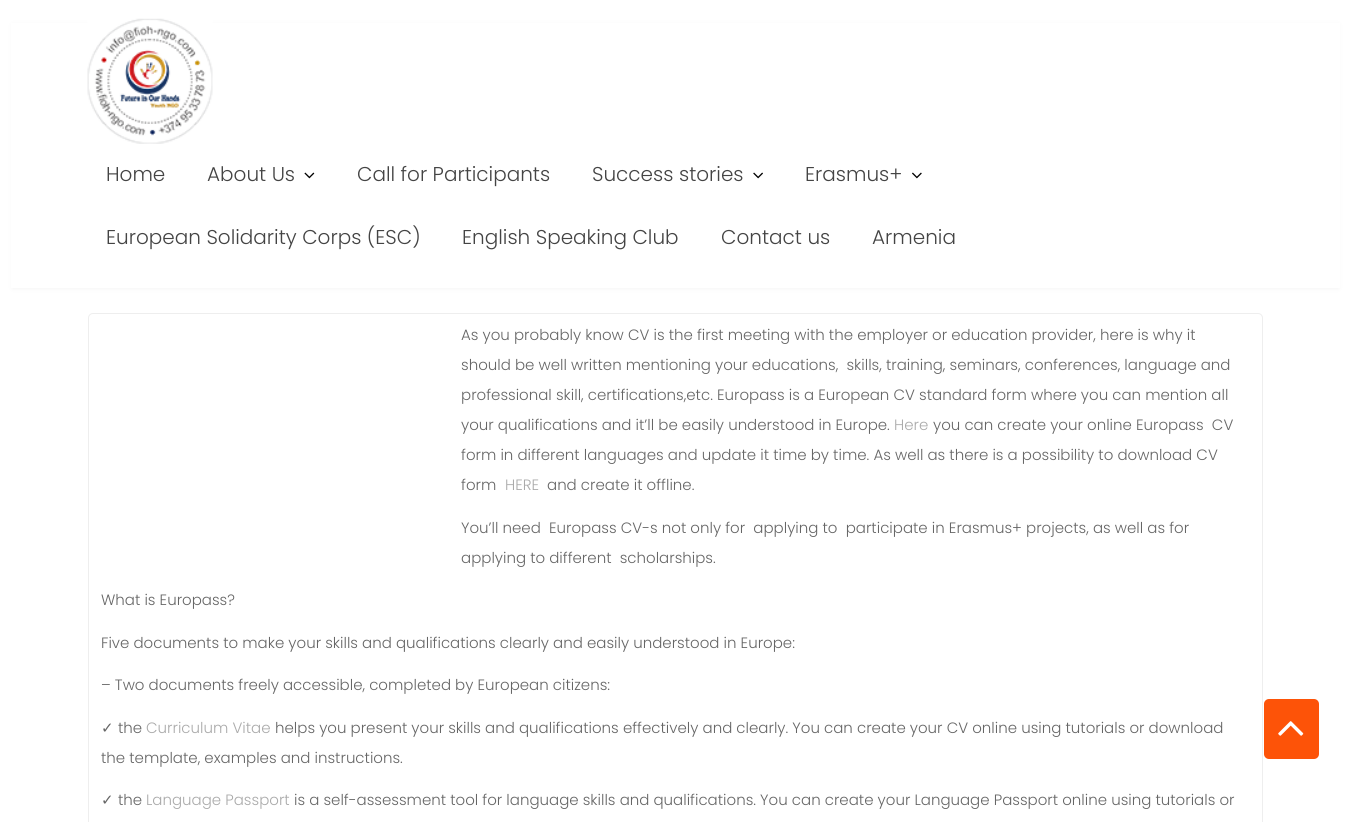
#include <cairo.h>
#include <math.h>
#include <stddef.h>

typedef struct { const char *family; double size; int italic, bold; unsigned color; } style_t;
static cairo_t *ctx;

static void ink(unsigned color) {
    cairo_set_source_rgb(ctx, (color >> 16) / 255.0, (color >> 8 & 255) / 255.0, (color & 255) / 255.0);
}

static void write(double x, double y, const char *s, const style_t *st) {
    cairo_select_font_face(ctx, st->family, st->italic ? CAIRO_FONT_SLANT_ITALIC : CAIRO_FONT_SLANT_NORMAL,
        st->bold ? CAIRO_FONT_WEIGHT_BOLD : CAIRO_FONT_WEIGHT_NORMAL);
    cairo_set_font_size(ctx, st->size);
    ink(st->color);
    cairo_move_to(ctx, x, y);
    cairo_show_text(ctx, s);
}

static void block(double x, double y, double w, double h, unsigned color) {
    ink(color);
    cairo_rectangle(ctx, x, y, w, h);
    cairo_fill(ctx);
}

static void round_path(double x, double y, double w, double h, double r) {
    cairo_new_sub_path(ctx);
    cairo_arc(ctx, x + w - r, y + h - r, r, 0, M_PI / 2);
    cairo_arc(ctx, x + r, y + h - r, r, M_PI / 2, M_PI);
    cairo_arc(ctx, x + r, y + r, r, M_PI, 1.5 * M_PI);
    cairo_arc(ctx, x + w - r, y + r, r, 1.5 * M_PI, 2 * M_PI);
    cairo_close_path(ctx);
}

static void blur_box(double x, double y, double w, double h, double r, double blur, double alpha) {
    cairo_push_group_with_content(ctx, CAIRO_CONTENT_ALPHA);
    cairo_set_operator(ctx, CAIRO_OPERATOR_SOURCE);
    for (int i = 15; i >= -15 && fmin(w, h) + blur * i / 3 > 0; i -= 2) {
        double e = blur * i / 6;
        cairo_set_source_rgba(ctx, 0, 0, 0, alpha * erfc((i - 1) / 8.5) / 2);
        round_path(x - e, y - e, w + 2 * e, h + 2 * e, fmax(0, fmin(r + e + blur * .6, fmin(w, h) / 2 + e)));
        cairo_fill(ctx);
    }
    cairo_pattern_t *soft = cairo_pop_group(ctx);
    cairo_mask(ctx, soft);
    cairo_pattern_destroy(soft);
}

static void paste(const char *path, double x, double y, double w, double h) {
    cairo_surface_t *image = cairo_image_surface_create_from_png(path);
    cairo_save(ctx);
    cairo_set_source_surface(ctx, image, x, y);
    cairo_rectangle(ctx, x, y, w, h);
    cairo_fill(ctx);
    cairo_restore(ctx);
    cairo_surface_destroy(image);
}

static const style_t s1 = {"Poppins Light", 20, 0, 0, 0x444444};
static const style_t s2 = {"Poppins Light", 15, 0, 0, 0x666666};
static const style_t s3 = {"Poppins Light", 15, 0, 0, 0xaaaaaa};
static const style_t s4 = {"DejaVu Sans", 15, 0, 0, 0x666666};

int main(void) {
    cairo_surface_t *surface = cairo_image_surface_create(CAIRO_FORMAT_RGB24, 1350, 822);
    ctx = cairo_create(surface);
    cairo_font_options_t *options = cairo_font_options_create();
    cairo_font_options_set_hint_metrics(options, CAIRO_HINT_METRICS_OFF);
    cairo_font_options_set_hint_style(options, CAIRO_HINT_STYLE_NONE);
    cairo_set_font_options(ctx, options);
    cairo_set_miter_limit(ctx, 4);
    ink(0xffffff);
    cairo_paint(ctx);
    ink(0xeeeeee);
    blur_box(13, 25, 1325, 263, 0, 2.5, 0.9);
    block(11, 23, 1329, 265, 0xffffff);
    paste("pic1.png", 87, 18, 126, 126);
    write(106, 181, "Home", &s1);
    write(207, 181, "About Us", &s1);
    paste("pic2.png", 304, 172, 11, 7);
    write(357, 181, "Call for Participants", &s1);
    write(592, 181, "Success stories", &s1);
    paste("pic3.png", 753, 172, 10, 7);
    write(805, 181, "Erasmus+", &s1);
    paste("pic4.png", 912, 172, 10, 7);
    write(106, 244, "European Solidarity Corps (ESC)", &s1);
    write(462, 244, "English Speaking Club", &s1);
    write(721, 244, "Contact us", &s1);
    write(872, 244, "Armenia", &s1);
    round_path(88.5, 313.5, 1174, 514, 4.5);
    ink(0xeeeeee);
    cairo_set_line_width(ctx, 1);
    cairo_stroke(ctx);
    write(461, 340, "As you probably know CV is the first meeting with the employer or education provider, here is why it", &s2);
    write(461, 370, "should be well written mentioning your educations,  skills, training, seminars, conferences, language and", &s2);
    write(461, 400, "professional skill, certifications,etc. Europass is a European CV standard form where you can mention all", &s2);
    write(461, 430, "your qualifications and it’ll be easily understood in Europe.", &s2);
    write(894, 430, "Here", &s3);
    write(933, 430, "you can create your online Europass  CV", &s2);
    write(461, 460, "form in different languages and update it time by time. As well as there is a possibility to download CV", &s2);
    write(461, 490, "form", &s2);
    write(505, 490, "HERE", &s3);
    write(547, 490, "and create it offline.", &s2);
    write(461, 533, "You’ll need  Europass CV-s not only for  applying to  participate in Erasmus+ projects, as well as for", &s2);
    write(461, 563, "applying to different  scholarships.", &s2);
    write(101, 605, "What is Europass?", &s2);
    write(101, 648, "Five documents to make your skills and qualifications clearly and easily understood in Europe:", &s2);
    write(101, 690, "– Two documents freely accessible, completed by European citizens:", &s2);
    write(101, 733, "✓", &s4);
    write(118, 733, "the", &s2);
    write(146, 733, "Curriculum Vitae", &s3);
    write(275, 733, "helps you present your skills and qualifications effectively and clearly. You can create your CV online using tutorials or download", &s2);
    write(101, 763, "the template, examples and instructions.", &s2);
    write(101, 805, "✓", &s4);
    write(118, 805, "the", &s2);
    write(146, 805, "Language Passport", &s3);
    write(294, 805, "is a self-assessment tool for language skills and qualifications. You can create your Language Passport online using tutorials or", &s2);
    ink(0xfd5308);
    round_path(1264, 699, 55, 60, 5);
    cairo_fill(ctx);
    paste("pic5.png", 1278, 721, 26, 15);
    cairo_surface_write_to_png(surface, "screenshot.png");
    cairo_font_options_destroy(options);
    cairo_destroy(ctx);
    cairo_surface_destroy(surface);
    return 0;
}
